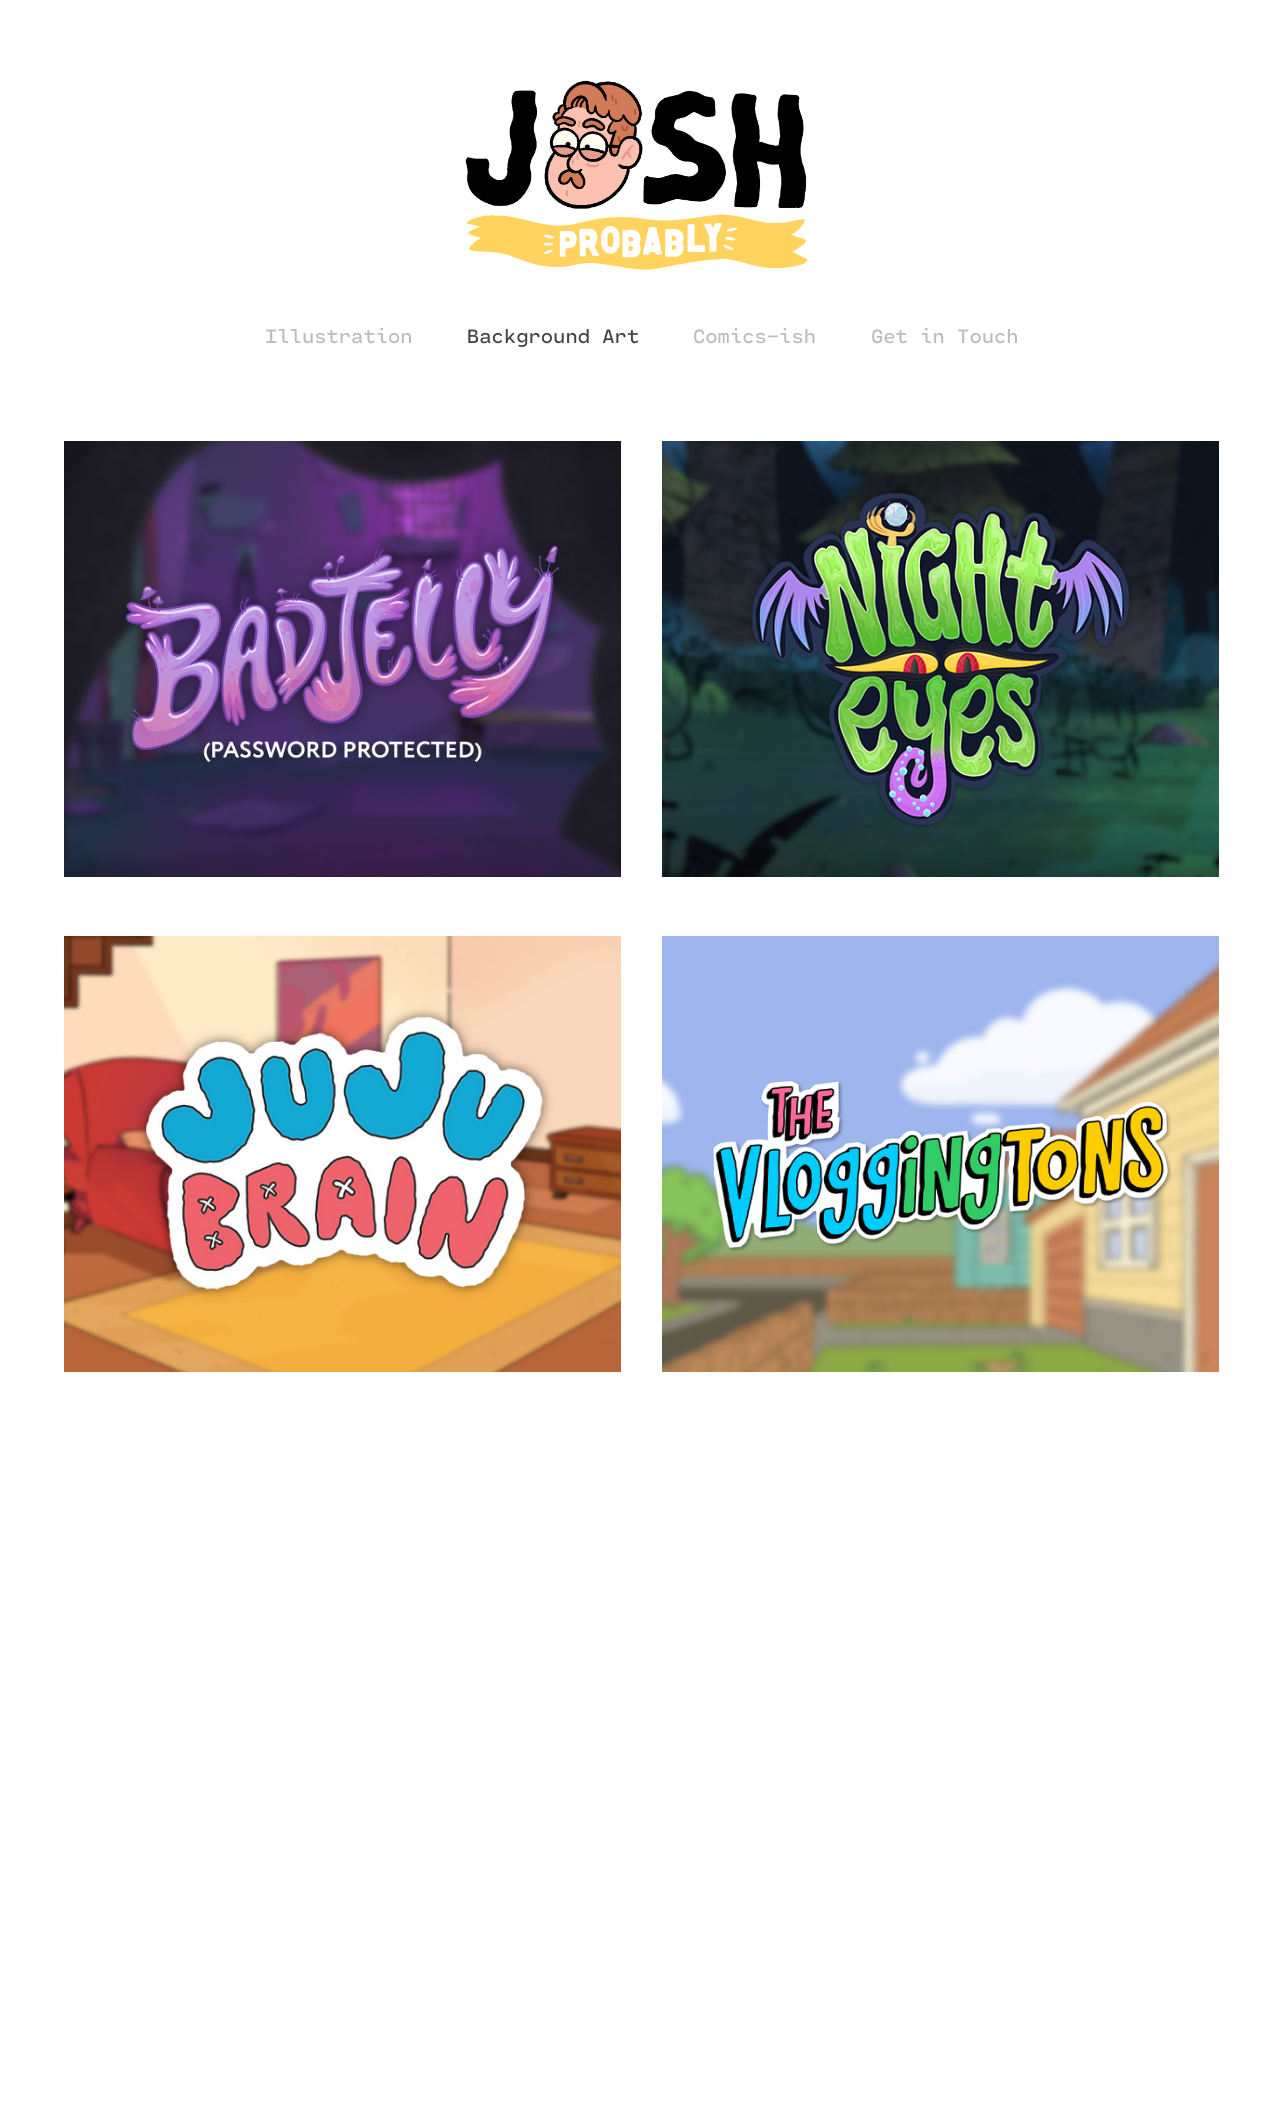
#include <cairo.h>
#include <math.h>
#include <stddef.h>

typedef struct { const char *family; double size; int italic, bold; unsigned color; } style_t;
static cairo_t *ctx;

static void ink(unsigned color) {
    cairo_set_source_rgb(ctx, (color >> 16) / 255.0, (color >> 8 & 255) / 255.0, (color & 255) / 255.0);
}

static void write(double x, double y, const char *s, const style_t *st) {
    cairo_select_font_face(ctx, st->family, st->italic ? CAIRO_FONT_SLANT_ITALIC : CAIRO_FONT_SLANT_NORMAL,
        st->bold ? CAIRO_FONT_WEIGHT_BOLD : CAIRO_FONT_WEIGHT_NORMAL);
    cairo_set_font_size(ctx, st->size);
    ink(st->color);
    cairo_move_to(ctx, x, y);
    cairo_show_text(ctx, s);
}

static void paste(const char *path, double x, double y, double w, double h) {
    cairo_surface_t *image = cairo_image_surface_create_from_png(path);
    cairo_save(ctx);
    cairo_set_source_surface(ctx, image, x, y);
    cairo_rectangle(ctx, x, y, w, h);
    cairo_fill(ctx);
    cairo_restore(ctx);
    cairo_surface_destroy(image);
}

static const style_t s1 = {"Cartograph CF", 20, 0, 0, 0xbbbbbb};
static const style_t s2 = {"Cartograph CF", 20, 0, 0, 0x444444};

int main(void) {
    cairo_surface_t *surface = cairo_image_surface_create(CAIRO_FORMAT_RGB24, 1283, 2122);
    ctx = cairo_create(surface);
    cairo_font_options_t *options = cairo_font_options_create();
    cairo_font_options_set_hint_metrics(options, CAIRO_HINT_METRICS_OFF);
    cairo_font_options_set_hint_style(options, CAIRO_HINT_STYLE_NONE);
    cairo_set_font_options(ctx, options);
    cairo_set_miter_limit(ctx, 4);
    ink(0xffffff);
    cairo_paint(ctx);
    paste("pic1.png", 465, 80, 343, 190);
    write(265, 343, "Illustration", &s1);
    write(467, 343, "Background Art", &s2);
    write(693, 343, "Comics-ish", &s1);
    write(871, 343, "Get in Touch", &s1);
    paste("pic2.png", 64, 441, 557, 436);
    paste("pic3.png", 662, 441, 557, 436);
    paste("pic4.png", 64, 936, 557, 436);
    paste("pic5.png", 662, 936, 557, 436);
    cairo_surface_write_to_png(surface, "screenshot.png");
    cairo_font_options_destroy(options);
    cairo_destroy(ctx);
    cairo_surface_destroy(surface);
    return 0;
}
